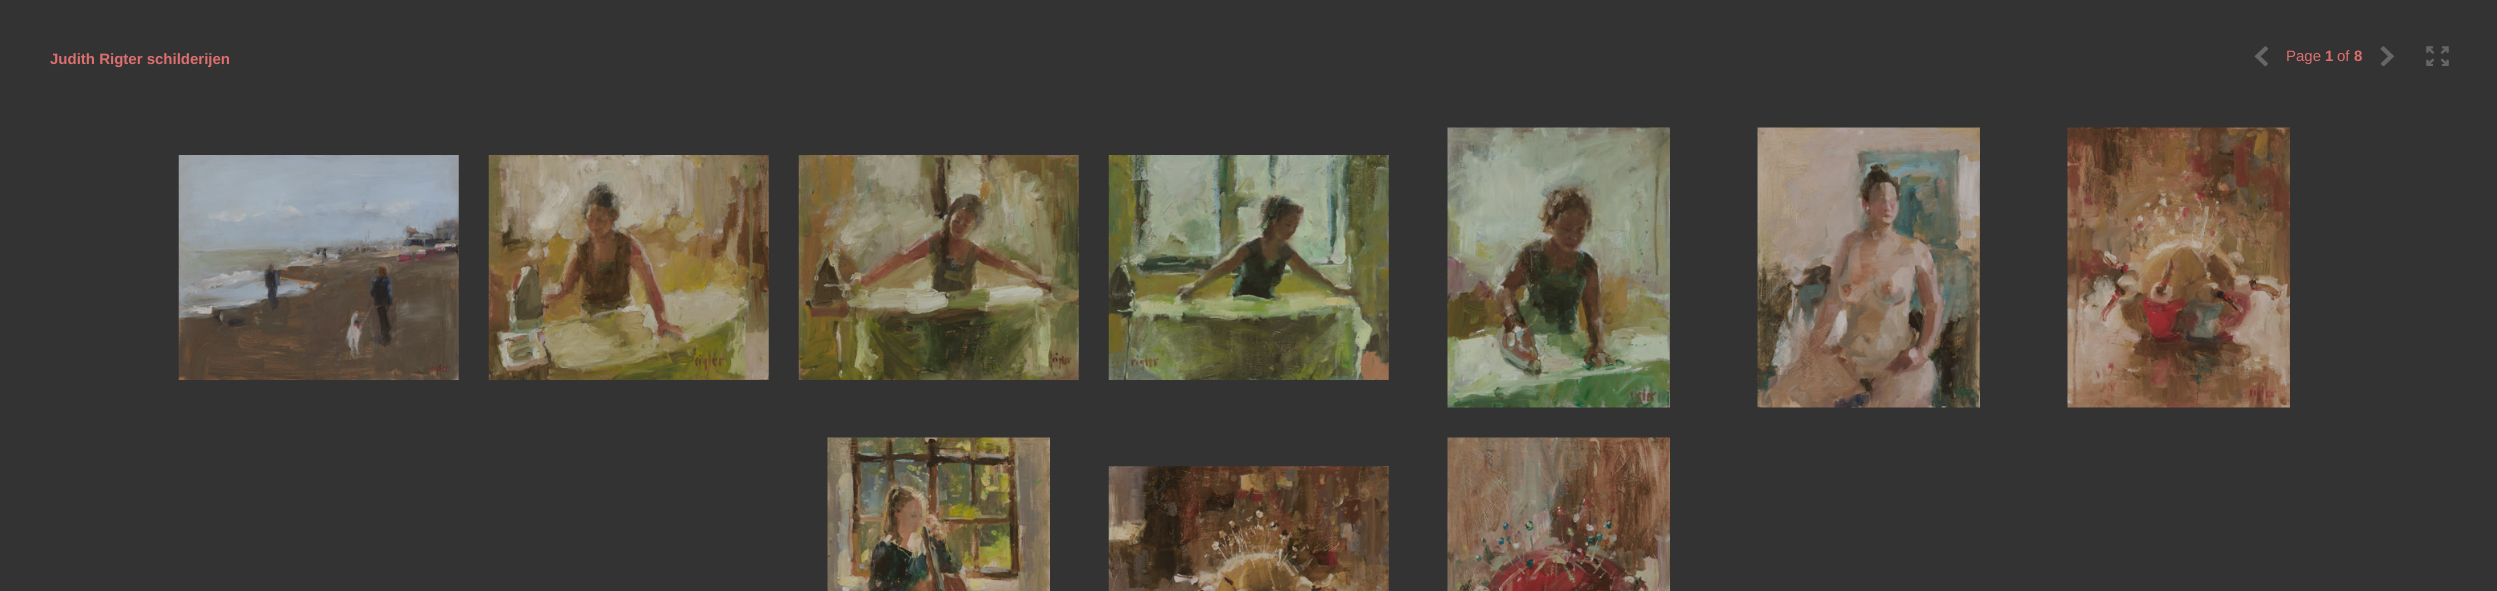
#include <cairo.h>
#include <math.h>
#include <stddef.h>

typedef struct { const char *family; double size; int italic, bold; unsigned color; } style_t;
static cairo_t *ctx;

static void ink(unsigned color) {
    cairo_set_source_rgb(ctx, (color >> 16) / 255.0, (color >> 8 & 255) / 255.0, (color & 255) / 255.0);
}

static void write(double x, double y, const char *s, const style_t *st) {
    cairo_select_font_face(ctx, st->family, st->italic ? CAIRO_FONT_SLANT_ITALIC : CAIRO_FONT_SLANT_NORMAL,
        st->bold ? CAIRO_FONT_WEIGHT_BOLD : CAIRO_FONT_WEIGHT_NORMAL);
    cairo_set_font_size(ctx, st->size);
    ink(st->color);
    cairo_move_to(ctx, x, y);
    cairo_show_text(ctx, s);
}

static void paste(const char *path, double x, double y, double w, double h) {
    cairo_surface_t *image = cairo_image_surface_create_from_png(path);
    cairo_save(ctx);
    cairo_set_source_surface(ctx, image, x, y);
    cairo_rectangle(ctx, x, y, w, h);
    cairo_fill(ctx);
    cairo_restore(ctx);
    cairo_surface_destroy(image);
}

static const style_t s1 = {"Liberation Sans", 15, 0, 1, 0xdd6f6f};
static const style_t s2 = {"Liberation Sans", 15, 0, 0, 0xdd6f6f};

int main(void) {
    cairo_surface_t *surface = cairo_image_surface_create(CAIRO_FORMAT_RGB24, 2497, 591);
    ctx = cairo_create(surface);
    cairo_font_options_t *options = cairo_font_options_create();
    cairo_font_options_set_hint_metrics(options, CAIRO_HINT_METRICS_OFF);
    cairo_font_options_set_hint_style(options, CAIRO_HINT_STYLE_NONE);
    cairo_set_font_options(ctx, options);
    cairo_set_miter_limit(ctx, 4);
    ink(0x333333);
    cairo_paint(ctx);
    write(50, 64, "Judith Rigter schilderijen", &s1);
    paste("pic1.png", 2254, 46, 14, 21);
    write(2286, 61, "Page", &s2);
    write(2325, 61, "1", &s1);
    write(2337, 61, "of", &s2);
    write(2354, 61, "8", &s1);
    paste("pic2.png", 2380, 46, 15, 21);
    paste("pic3.png", 2426, 46, 23, 20);
    paste("pic4.png", 178, 155, 281, 225);
    paste("pic5.png", 488, 155, 281, 225);
    paste("pic6.png", 798, 155, 281, 225);
    paste("pic7.png", 1108, 155, 281, 225);
    paste("pic8.png", 1447, 127, 223, 281);
    paste("pic9.png", 1757, 127, 223, 281);
    paste("pic10.png", 2067, 127, 223, 281);
    paste("pic11.png", 827, 437, 223, 154);
    paste("pic12.png", 1108, 466, 281, 125);
    paste("pic13.png", 1447, 437, 223, 154);
    cairo_surface_write_to_png(surface, "screenshot.png");
    cairo_font_options_destroy(options);
    cairo_destroy(ctx);
    cairo_surface_destroy(surface);
    return 0;
}
